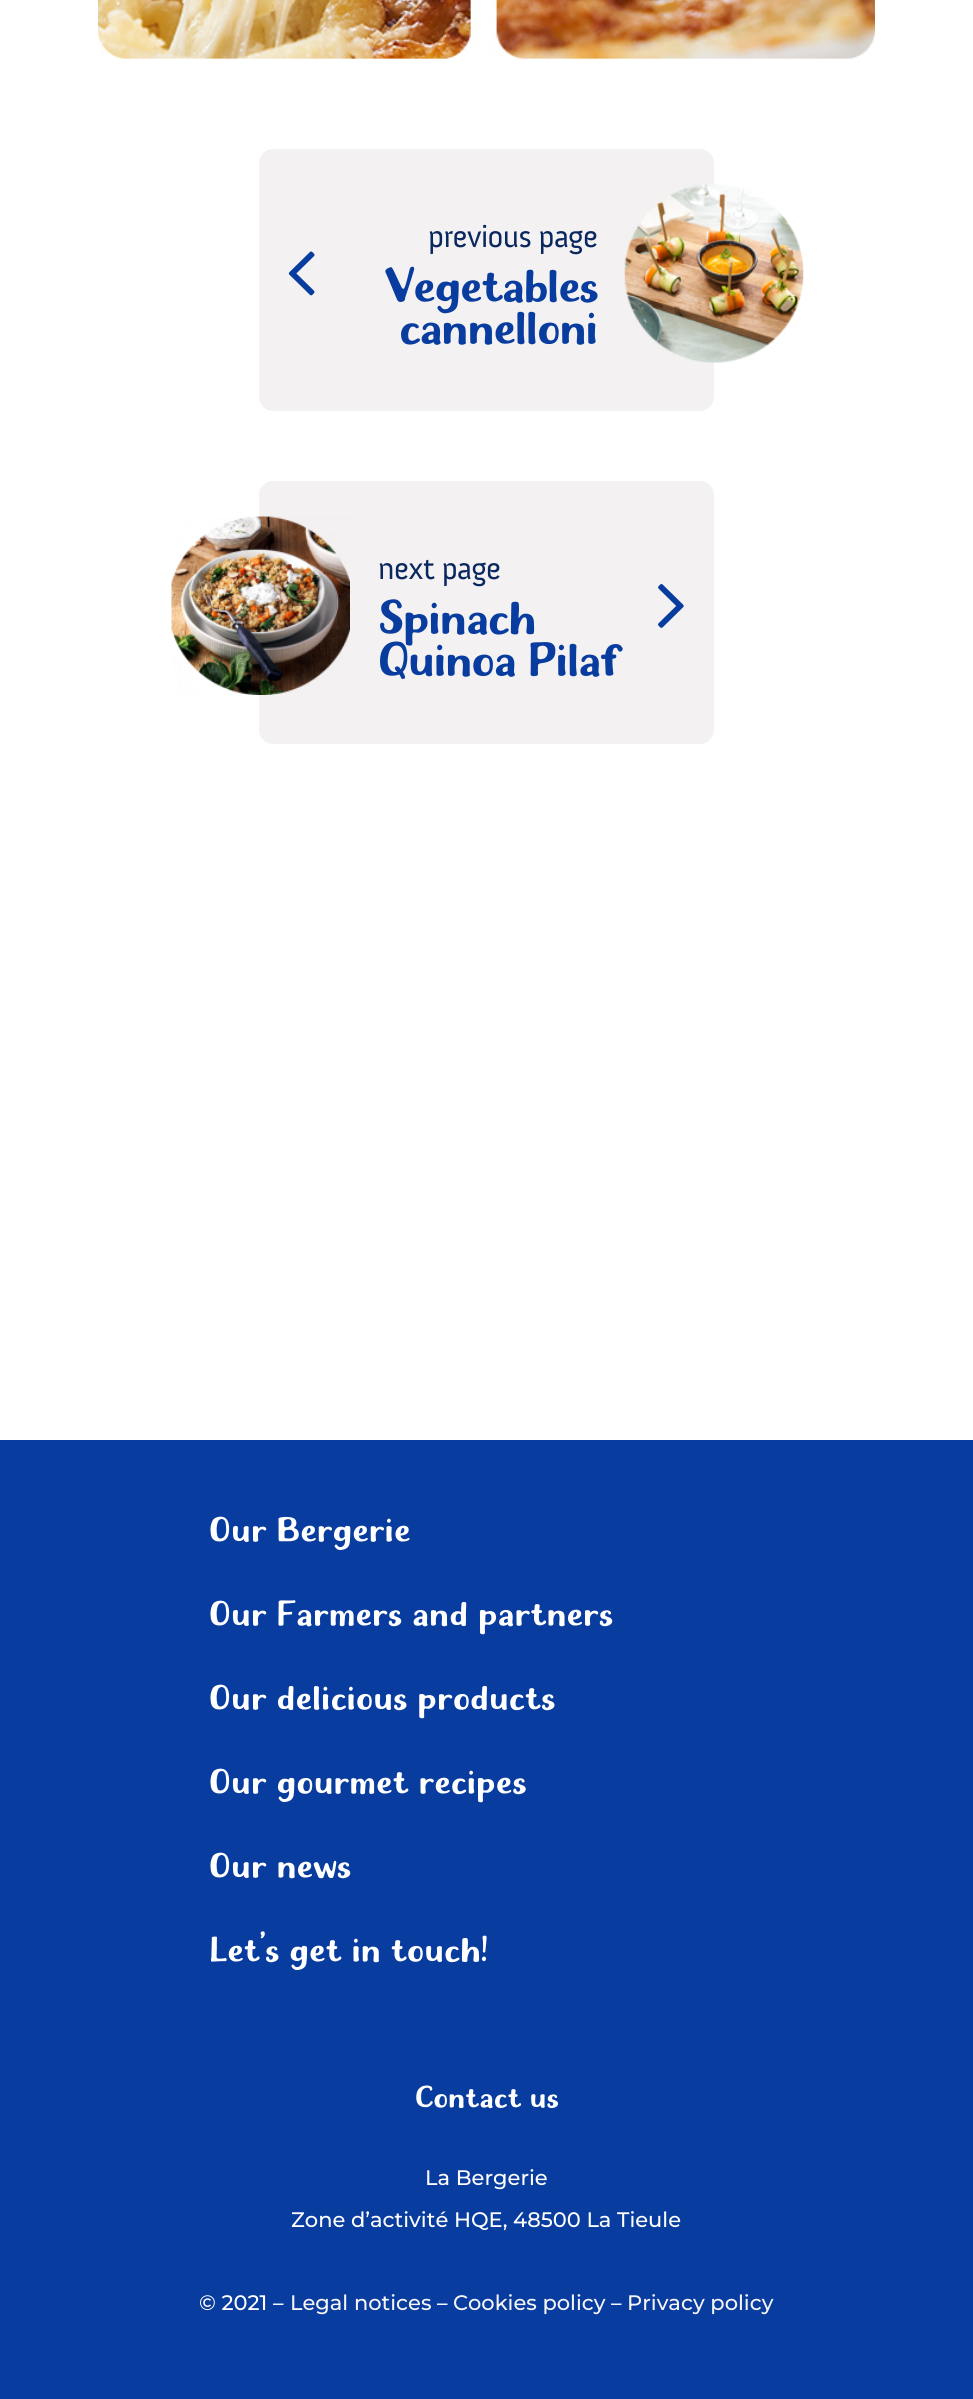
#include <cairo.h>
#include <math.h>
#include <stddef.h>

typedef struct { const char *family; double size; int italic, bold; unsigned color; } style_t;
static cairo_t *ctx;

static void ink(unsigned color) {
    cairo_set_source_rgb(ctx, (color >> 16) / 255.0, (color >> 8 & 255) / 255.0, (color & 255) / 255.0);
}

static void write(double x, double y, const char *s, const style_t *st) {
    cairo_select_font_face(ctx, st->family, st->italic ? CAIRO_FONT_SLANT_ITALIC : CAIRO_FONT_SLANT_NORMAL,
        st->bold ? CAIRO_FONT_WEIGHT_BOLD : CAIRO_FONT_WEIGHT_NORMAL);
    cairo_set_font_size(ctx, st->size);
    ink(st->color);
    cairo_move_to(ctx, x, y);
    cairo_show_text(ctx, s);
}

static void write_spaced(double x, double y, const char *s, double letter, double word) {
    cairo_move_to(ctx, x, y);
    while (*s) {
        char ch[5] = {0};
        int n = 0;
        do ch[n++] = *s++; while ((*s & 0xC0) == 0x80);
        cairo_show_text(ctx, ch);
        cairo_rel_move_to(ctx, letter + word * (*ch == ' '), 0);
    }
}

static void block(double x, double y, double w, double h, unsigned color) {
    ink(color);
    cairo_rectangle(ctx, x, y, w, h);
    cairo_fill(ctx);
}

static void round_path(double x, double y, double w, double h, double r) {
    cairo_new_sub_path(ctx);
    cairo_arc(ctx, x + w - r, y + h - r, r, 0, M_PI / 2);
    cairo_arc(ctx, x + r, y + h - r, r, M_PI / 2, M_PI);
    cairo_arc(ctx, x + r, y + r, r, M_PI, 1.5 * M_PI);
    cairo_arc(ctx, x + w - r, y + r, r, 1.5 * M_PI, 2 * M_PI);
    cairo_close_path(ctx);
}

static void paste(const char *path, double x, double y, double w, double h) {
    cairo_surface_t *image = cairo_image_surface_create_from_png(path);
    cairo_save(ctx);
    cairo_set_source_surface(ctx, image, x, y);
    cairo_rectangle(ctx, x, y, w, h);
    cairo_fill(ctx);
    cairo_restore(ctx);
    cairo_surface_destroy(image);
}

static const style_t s1 = {"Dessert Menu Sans", 49, 0, 0, 0xffffff};
static const style_t s2 = {"Dessert Menu Sans", 42, 0, 0, 0xffffff};
static const style_t s3 = {"Montserrat Thin", 21, 0, 0, 0xffffff};
static const style_t s4 = {"Montserrat Thin", 21, 0, 0, 0xf5f5f5};

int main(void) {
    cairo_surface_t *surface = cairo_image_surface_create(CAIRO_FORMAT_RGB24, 973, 2399);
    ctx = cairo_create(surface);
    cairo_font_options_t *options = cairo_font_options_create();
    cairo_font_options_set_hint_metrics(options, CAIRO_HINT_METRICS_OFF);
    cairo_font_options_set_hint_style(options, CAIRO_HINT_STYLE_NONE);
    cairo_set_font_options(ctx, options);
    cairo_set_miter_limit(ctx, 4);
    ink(0xffffff);
    cairo_paint(ctx);
    paste("pic1.png", 98, 0, 777, 59);
    ink(0xf3f1f1);
    round_path(259, 149, 455, 262, 14);
    cairo_fill(ctx);
    paste("pic2.png", 288, 251, 27, 45);
    cairo_select_font_face(ctx, "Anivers", CAIRO_FONT_SLANT_NORMAL, CAIRO_FONT_WEIGHT_NORMAL);
    cairo_set_font_size(ctx, 31.5);
    ink(0x0b275f);
    write_spaced(428, 247, "previous page", -0.6, 0);
    cairo_select_font_face(ctx, "Dessert Menu Sans", CAIRO_FONT_SLANT_NORMAL, CAIRO_FONT_WEIGHT_NORMAL);
    cairo_set_font_size(ctx, 66.5);
    ink(0x093c9f);
    write_spaced(385, 301, "Vegetables", -1.25, 0);
    write_spaced(399, 343, "cannelloni", -1.25, 0);
    paste("pic3.png", 624, 184, 180, 179);
    ink(0xf3f1f1);
    round_path(259, 481, 455, 263, 14);
    cairo_fill(ctx);
    paste("pic4.png", 171, 516, 179, 179);
    cairo_select_font_face(ctx, "Anivers", CAIRO_FONT_SLANT_NORMAL, CAIRO_FONT_WEIGHT_NORMAL);
    cairo_set_font_size(ctx, 31.5);
    ink(0x0b275f);
    write_spaced(378, 579, "next page", -0.6, 0);
    cairo_select_font_face(ctx, "Dessert Menu Sans", CAIRO_FONT_SLANT_NORMAL, CAIRO_FONT_WEIGHT_NORMAL);
    cairo_set_font_size(ctx, 66.5);
    ink(0x093c9f);
    write_spaced(378, 633, "Spinach", -1.25, 0);
    write_spaced(378, 675, "Quinoa Pilaf", -1.25, 0);
    paste("pic5.png", 658, 584, 26, 44);
    block(0, 1440, 973, 959, 0x093c9f);
    write(209, 1541, "Our Bergerie", &s1);
    write(209, 1625, "Our Farmers and partners", &s1);
    write(209, 1709, "Our delicious products", &s1);
    write(209, 1793, "Our gourmet recipes", &s1);
    write(209, 1877, "Our news", &s1);
    write(209, 1961, "Let’s get in touch!", &s1);
    write(415, 2107, "Contact us", &s2);
    write(425, 2185, "La Bergerie", &s3);
    write(291, 2227, "Zone d’activité HQE, 48500 La Tieule", &s3);
    write(199, 2310, "© 2021 –", &s3);
    write(290, 2310, "Legal notices", &s4);
    write(437, 2310, "–", &s3);
    write(453, 2310, "Cookies policy", &s4);
    write(611, 2310, "–", &s3);
    write(627, 2310, "Privacy policy", &s4);
    cairo_surface_write_to_png(surface, "screenshot.png");
    cairo_font_options_destroy(options);
    cairo_destroy(ctx);
    cairo_surface_destroy(surface);
    return 0;
}
